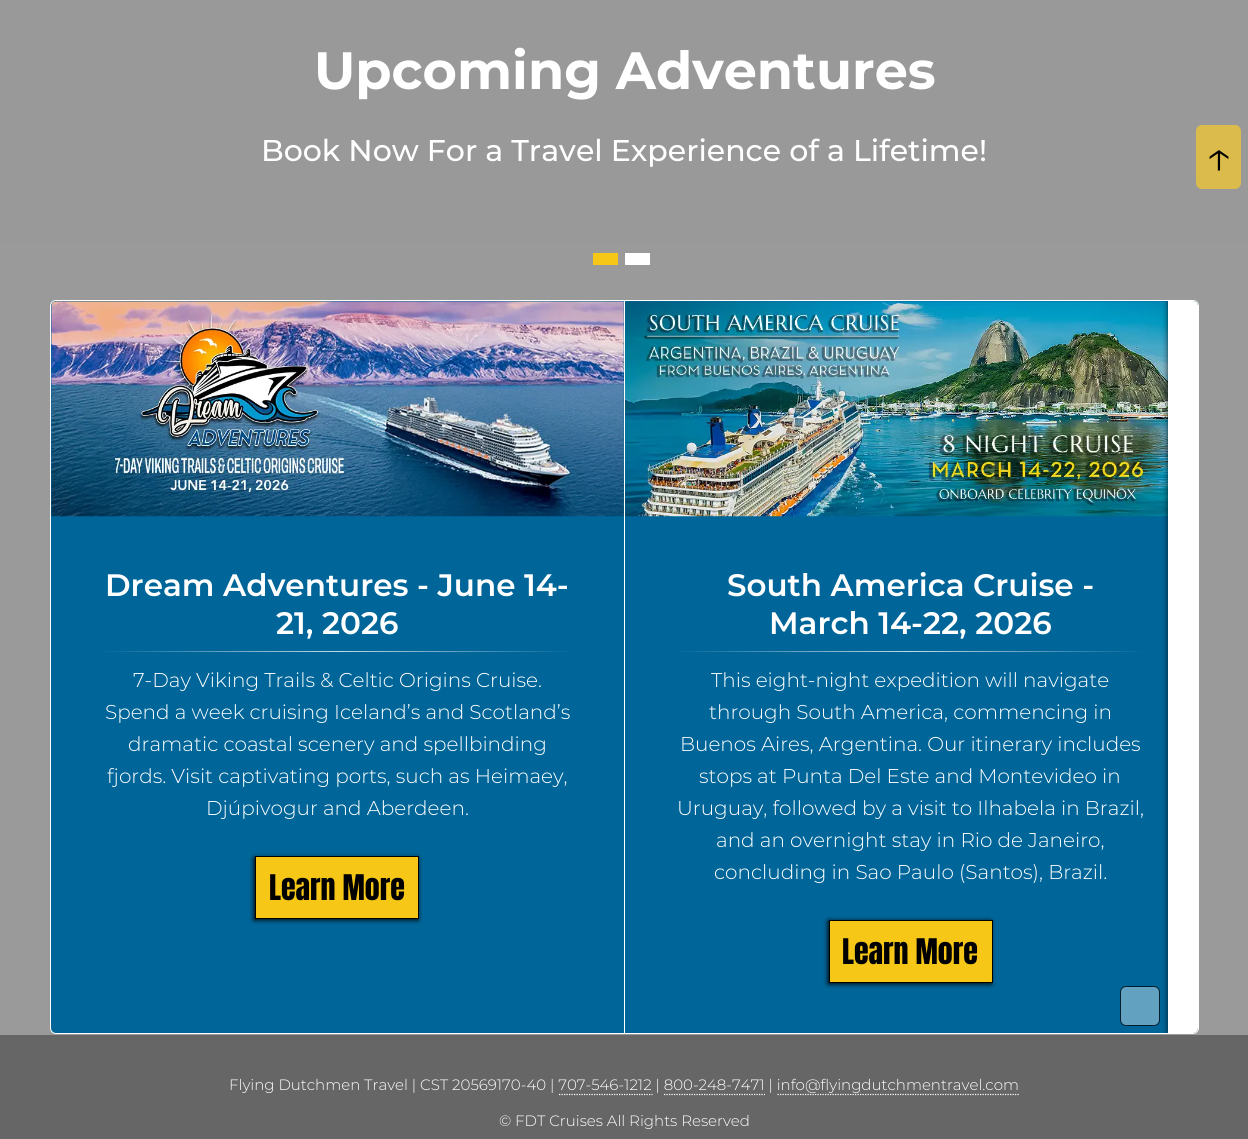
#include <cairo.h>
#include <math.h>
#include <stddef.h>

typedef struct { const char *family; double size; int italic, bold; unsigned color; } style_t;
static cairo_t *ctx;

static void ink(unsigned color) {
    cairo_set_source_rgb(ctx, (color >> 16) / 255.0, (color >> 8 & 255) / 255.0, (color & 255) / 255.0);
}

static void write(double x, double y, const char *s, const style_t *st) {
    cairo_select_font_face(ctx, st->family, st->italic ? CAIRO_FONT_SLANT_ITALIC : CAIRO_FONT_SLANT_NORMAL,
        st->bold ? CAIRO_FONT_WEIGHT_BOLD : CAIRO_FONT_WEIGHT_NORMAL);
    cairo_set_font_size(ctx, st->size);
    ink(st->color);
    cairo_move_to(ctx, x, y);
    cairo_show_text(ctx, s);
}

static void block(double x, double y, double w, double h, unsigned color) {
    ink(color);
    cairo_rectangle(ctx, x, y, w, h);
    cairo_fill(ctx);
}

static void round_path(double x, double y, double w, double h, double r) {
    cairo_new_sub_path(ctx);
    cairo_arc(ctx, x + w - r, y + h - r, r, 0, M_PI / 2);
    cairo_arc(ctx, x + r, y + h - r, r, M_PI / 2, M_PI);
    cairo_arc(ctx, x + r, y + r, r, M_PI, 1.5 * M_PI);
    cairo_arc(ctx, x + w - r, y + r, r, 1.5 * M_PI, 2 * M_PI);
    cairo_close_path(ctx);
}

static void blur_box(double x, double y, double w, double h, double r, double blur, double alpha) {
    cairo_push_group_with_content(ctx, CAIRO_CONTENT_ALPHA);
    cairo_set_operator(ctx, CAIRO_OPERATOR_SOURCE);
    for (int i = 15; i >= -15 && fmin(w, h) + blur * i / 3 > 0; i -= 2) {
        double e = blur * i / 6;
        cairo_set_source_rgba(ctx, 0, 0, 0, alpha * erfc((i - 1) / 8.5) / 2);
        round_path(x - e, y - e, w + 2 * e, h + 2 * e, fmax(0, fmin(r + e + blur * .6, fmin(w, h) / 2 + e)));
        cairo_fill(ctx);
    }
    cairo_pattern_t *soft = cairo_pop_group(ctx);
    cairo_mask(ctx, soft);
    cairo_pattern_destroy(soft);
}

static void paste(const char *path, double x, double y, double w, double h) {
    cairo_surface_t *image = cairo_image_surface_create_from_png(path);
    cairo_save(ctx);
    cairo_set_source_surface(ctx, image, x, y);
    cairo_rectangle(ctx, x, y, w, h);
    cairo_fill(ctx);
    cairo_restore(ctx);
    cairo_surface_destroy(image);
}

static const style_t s1 = {"Montserrat", 52.5, 0, 1, 0xffffff};
static const style_t s2 = {"Montserrat Medium", 30, 0, 0, 0xffffff};
static const style_t s3 = {"Montserrat SemiBold", 31, 0, 0, 0xffffff};
static const style_t s4 = {"Montserrat Light", 20, 0, 0, 0xffffff};
static const style_t s5 = {"Anton", 30, 0, 0, 0x000000};
static const style_t s6 = {"Montserrat Light", 50, 0, 0, 0x000000};
static const style_t s7 = {"Montserrat Light", 15, 0, 0, 0xffffff};

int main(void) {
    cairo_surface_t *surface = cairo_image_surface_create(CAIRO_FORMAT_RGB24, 1248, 1139);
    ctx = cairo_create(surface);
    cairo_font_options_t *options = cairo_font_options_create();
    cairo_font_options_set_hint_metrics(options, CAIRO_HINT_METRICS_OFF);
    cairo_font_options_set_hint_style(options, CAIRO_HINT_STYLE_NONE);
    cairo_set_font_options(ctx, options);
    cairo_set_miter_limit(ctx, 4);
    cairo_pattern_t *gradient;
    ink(0x666666);
    cairo_paint(ctx);
    block(0, 0, 1248, 243, 0x999999);
    write(314, 89, "Upcoming Adventures", &s1);
    write(261, 161, "Book Now For a Travel Experience of a Lifetime!", &s2);
    block(0, 243, 1248, 792, 0x9a9a9a);
    block(593, 253, 25, 12, 0xf7c717);
    block(625, 253, 25, 12, 0xffffff);
    ink(0x006699);
    round_path(50.5, 300.5, 1148, 733, 5.5);
    cairo_fill_preserve(ctx);
    ink(0xffffff);
    cairo_set_line_width(ctx, 1);
    cairo_stroke(ctx);
    block(624, 301, 1, 732, 0xffffff);
    paste("pic1.png", 51, 301, 573, 216);
    write(105, 596, "Dream Adventures - June 14-", &s3);
    write(276, 634, "21, 2026", &s3);
    gradient = cairo_pattern_create_linear(101, 652, 574, 652);
    cairo_pattern_add_color_stop_rgba(gradient, 0, 0, 0.4, 0.6, 1);
    cairo_pattern_add_color_stop_rgba(gradient, 0.5, 0.749, 0.851, 0.902, 1);
    cairo_pattern_add_color_stop_rgba(gradient, 1, 0, 0.4, 0.6, 1);
    cairo_set_source(ctx, gradient);
    cairo_pattern_destroy(gradient);
    cairo_rectangle(ctx, 101, 651, 473, 1);
    cairo_fill(ctx);
    write(133, 687, "7-Day Viking Trails & Celtic Origins Cruise.", &s4);
    write(105, 719, "Spend a week cruising Iceland’s and Scotland’s", &s4);
    write(128, 751, "dramatic coastal scenery and spellbinding", &s4);
    write(107, 783, "fjords. Visit captivating ports, such as Heimaey,", &s4);
    write(206, 815, "Djúpivogur and Aberdeen.", &s4);
    ink(0x000000);
    blur_box(254, 858, 164, 62, 0, 2.5, 1);
    ink(0xf7c717);
    cairo_rectangle(ctx, 255.5, 856.5, 163, 62);
    cairo_fill_preserve(ctx);
    ink(0x000000);
    cairo_stroke(ctx);
    write(269, 900, "Learn More", &s5);
    paste("pic2.png", 625, 301, 570, 216);
    write(727, 596, "South America Cruise -", &s3);
    write(769, 634, "March 14-22, 2026", &s3);
    gradient = cairo_pattern_create_linear(675, 652, 1146, 652);
    cairo_pattern_add_color_stop_rgba(gradient, 0, 0, 0.4, 0.6, 1);
    cairo_pattern_add_color_stop_rgba(gradient, 0.5, 0.749, 0.851, 0.902, 1);
    cairo_pattern_add_color_stop_rgba(gradient, 1, 0, 0.4, 0.6, 1);
    cairo_set_source(ctx, gradient);
    cairo_pattern_destroy(gradient);
    cairo_rectangle(ctx, 675, 651, 471, 1);
    cairo_fill(ctx);
    write(711, 687, "This eight-night expedition will navigate", &s4);
    write(709, 719, "through South America, commencing in", &s4);
    write(680, 751, "Buenos Aires, Argentina. Our itinerary includes", &s4);
    write(699, 783, "stops at Punta Del Este and Montevideo in", &s4);
    write(677, 815, "Uruguay, followed by a visit to Ilhabela in Brazil,", &s4);
    write(716, 847, "and an overnight stay in Rio de Janeiro,", &s4);
    write(714, 879, "concluding in Sao Paulo (Santos), Brazil.", &s4);
    ink(0x000000);
    blur_box(828, 921, 163, 63, 0, 2.5, 1);
    ink(0xf7c717);
    cairo_rectangle(ctx, 829.5, 920.5, 163, 62);
    cairo_fill_preserve(ctx);
    ink(0x000000);
    cairo_stroke(ctx);
    write(842, 964, "Learn More", &s5);
    cairo_save(ctx);
    round_path(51, 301, 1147, 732, 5);
    cairo_clip(ctx);
    ink(0x000000);
    blur_box(1168, 301, 30, 732, 0, 3, 0.75);
    cairo_restore(ctx);
    ink(0xffffff);
    cairo_new_path(ctx);
    cairo_move_to(ctx, 1168, 301);
    cairo_line_to(ctx, 1193, 301);
    cairo_curve_to(ctx, 1196, 301, 1198, 303, 1198, 306);
    cairo_line_to(ctx, 1198, 1028);
    cairo_curve_to(ctx, 1198, 1031, 1196, 1033, 1193, 1033);
    cairo_line_to(ctx, 1168, 1033);
    cairo_close_path(ctx);
    cairo_fill(ctx);
    ink(0x62a1c0);
    round_path(1120.5, 986.5, 39, 39, 5.5);
    cairo_fill_preserve(ctx);
    ink(0x001f2e);
    cairo_stroke(ctx);
    ink(0xdbbb4b);
    round_path(1196, 125, 45, 64, 6);
    cairo_fill(ctx);
    write(1204, 174, "↑", &s6);
    write(229, 1090, "Flying Dutchmen Travel | CST 20569170-40 | 707-546-1212 | 800-248-7471 | info@flyingdutchmentravel.com", &s7);
    cairo_new_path(ctx);
    cairo_move_to(ctx, 559, 1094.5);
    cairo_line_to(ctx, 652.5, 1094.5);
    cairo_set_line_width(ctx, 1.2);
    cairo_set_dash(ctx, (double[]){1.25, 1.25}, 2, 0);
    cairo_stroke(ctx);
    cairo_new_path(ctx);
    cairo_move_to(ctx, 664, 1094.5);
    cairo_line_to(ctx, 765, 1094.5);
    cairo_stroke(ctx);
    cairo_new_path(ctx);
    cairo_move_to(ctx, 777.5, 1094.5);
    cairo_line_to(ctx, 1020, 1094.5);
    cairo_stroke(ctx);
    write(499, 1126, "© FDT Cruises All Rights Reserved", &s7);
    cairo_surface_write_to_png(surface, "screenshot.png");
    cairo_font_options_destroy(options);
    cairo_destroy(ctx);
    cairo_surface_destroy(surface);
    return 0;
}
